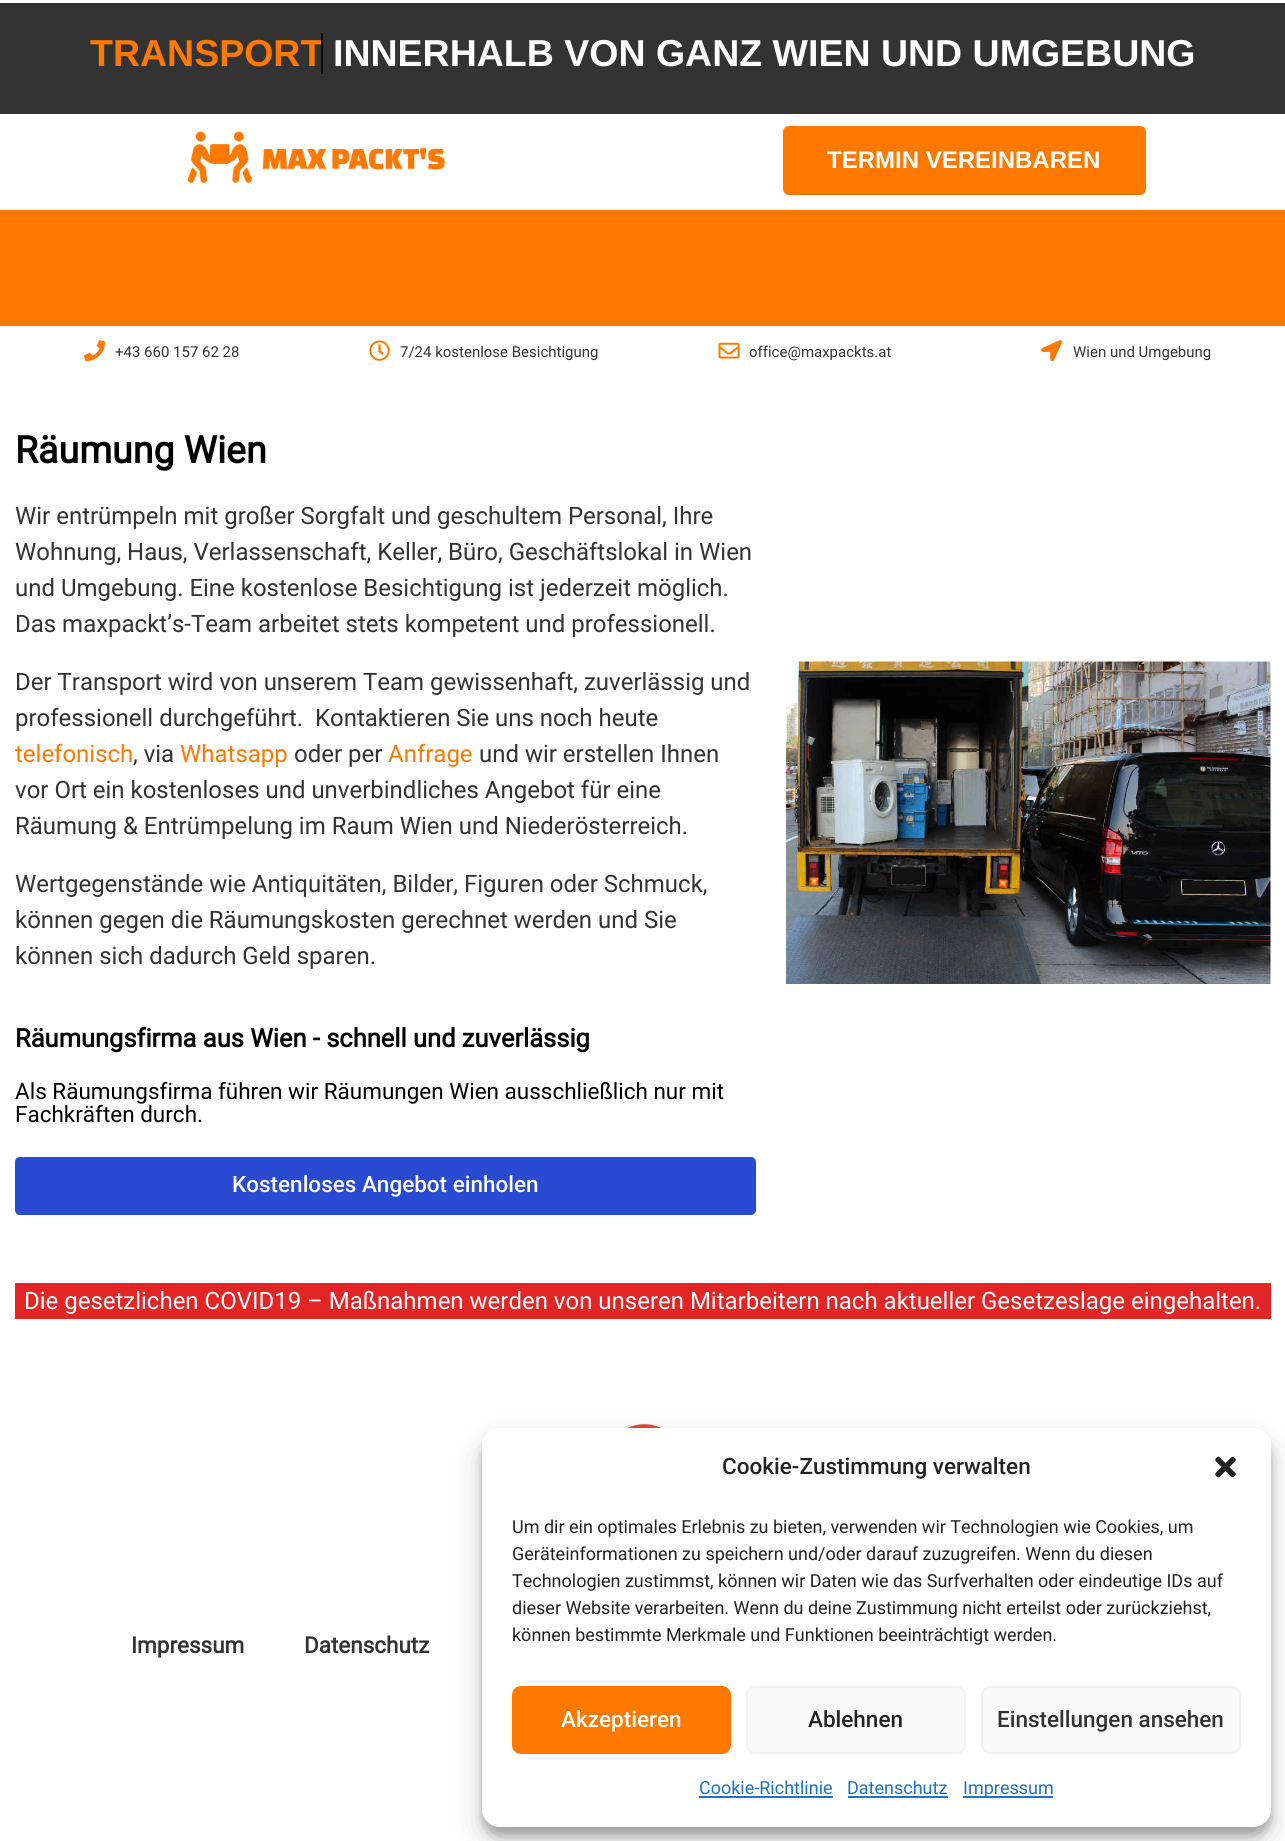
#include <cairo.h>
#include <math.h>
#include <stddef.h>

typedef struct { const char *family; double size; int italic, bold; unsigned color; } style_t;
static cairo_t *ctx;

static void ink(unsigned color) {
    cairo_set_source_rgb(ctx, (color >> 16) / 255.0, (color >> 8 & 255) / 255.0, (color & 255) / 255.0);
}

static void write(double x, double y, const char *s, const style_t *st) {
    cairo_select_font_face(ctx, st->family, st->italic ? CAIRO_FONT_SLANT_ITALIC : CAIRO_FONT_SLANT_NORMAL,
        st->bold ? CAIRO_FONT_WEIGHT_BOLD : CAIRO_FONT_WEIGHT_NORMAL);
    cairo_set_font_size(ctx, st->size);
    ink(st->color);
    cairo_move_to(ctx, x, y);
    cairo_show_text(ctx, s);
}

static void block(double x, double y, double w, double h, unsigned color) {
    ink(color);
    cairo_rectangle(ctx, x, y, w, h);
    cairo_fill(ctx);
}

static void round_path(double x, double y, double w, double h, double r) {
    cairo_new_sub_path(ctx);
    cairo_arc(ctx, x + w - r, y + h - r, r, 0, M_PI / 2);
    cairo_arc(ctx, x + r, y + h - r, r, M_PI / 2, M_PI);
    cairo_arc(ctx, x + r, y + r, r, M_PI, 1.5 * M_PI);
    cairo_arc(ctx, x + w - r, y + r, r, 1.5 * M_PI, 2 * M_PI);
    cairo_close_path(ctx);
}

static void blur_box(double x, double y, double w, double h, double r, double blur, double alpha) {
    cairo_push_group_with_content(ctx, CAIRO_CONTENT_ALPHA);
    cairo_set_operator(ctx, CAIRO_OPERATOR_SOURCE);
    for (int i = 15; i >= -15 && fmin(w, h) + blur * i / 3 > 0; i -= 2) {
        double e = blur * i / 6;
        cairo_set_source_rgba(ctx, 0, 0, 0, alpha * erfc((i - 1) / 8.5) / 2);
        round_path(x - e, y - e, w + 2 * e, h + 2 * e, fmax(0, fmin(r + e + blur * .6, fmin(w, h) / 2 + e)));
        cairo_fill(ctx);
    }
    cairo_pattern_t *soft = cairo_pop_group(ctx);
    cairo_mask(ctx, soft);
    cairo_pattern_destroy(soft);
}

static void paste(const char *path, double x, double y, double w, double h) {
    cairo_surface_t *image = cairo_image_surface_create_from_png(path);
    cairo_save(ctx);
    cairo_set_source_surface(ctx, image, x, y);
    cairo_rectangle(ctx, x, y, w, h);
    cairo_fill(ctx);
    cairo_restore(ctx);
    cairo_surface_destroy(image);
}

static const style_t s1 = {"Liberation Sans", 37.5, 0, 1, 0xff7900};
static const style_t s2 = {"Liberation Sans", 37.5, 0, 1, 0xffffff};
static const style_t s3 = {"Liberation Sans", 24, 0, 1, 0xffffff};
static const style_t s4 = {"Roboto", 15, 0, 0, 0x333333};
static const style_t s5 = {"Roboto", 37.5, 0, 1, 0x000000};
static const style_t s6 = {"Roboto", 24, 0, 0, 0x333333};
static const style_t s7 = {"Roboto", 24, 0, 0, 0xff7900};
static const style_t s8 = {"Roboto", 25.5, 0, 1, 0x000000};
static const style_t s9 = {"Roboto", 22.5, 0, 0, 0x000000};
static const style_t s10 = {"Roboto Medium", 22.5, 0, 0, 0xffffff};
static const style_t s11 = {"Roboto", 24, 0, 0, 0xffffff};
static const style_t s12 = {"Roboto", 22.5, 0, 1, 0x333333};
static const style_t s13 = {"Roboto Medium", 22.5, 0, 0, 0x222222};
static const style_t s14 = {"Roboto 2", 18, 0, 0, 0x222222};
static const style_t s15 = {"Roboto Medium", 22.5, 0, 0, 0x333333};
static const style_t s16 = {"Roboto 2", 18, 0, 0, 0x1e73be};

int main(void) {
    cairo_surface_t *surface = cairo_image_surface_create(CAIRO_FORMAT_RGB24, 1285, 1841);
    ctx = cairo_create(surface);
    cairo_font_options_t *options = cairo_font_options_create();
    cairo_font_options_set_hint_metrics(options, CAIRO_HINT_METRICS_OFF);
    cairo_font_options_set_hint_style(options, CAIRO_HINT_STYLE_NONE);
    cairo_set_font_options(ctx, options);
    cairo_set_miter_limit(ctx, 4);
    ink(0xffffff);
    cairo_paint(ctx);
    block(0, 3, 1285, 111, 0x333333);
    write(90, 66, "TRANSPORT", &s1);
    block(321, 33, 2, 41, 0x0d0d0d);
    write(333, 66, "INNERHALB VON GANZ WIEN UND UMGEBUNG", &s2);
    paste("pic1.png", 187, 131, 259, 52);
    ink(0xff7900);
    round_path(783, 126, 363, 69, 6);
    cairo_fill(ctx);
    write(827, 168, "TERMIN VEREINBAREN", &s3);
    block(0, 210, 1285, 116, 0xff7900);
    paste("pic2.png", 84, 340, 21, 22);
    write(115, 357, "+43 660 157 62 28", &s4);
    paste("pic3.png", 369, 340, 21, 21);
    write(400, 357, "7/24 kostenlose Besichtigung", &s4);
    paste("pic4.png", 718, 342, 22, 17);
    write(749, 357, "office@maxpackts.at", &s4);
    paste("pic5.png", 1041, 340, 21, 22);
    write(1073, 357, "Wien und Umgebung", &s4);
    write(15, 463, "Räumung Wien", &s5);
    write(15, 524, "Wir entrümpeln mit großer Sorgfalt und geschultem Personal, Ihre", &s6);
    write(15, 560, "Wohnung, Haus, Verlassenschaft, Keller, Büro, Geschäftslokal in Wien", &s6);
    write(15, 596, "und Umgebung. Eine kostenlose Besichtigung ist jederzeit möglich.", &s6);
    write(15, 632, "Das maxpackt’s-Team arbeitet stets kompetent und professionell.", &s6);
    write(15, 690, "Der Transport wird von unserem Team gewissenhaft, zuverlässig und", &s6);
    write(15, 726, "professionell durchgeführt.  Kontaktieren Sie uns noch heute", &s6);
    write(15, 762, "telefonisch", &s7);
    write(133, 762, ", via", &s6);
    write(180, 762, "Whatsapp", &s7);
    write(294, 762, "oder per", &s6);
    write(388, 762, "Anfrage", &s7);
    write(479, 762, "und wir erstellen Ihnen", &s6);
    write(15, 798, "vor Ort ein kostenloses und unverbindliches Angebot für eine", &s6);
    write(15, 834, "Räumung & Entrümpelung im Raum Wien und Niederösterreich.", &s6);
    write(15, 892, "Wertgegenstände wie Antiquitäten, Bilder, Figuren oder Schmuck,", &s6);
    write(15, 928, "können gegen die Räumungskosten gerechnet werden und Sie", &s6);
    write(15, 964, "können sich dadurch Geld sparen.", &s6);
    write(15, 1047, "Räumungsfirma aus Wien - schnell und zuverlässig", &s8);
    write(15, 1099, "Als Räumungsfirma führen wir Räumungen Wien ausschließlich nur mit", &s9);
    write(15, 1122, "Fachkräften durch.", &s9);
    ink(0x284bd1);
    round_path(15, 1157, 741, 58, 5);
    cairo_fill(ctx);
    write(232, 1192, "Kostenloses Angebot einholen", &s10);
    paste("pic6.png", 786, 661, 485, 323);
    block(15, 1283, 1256, 36, 0xe42525);
    write(24, 1309, "Die gesetzlichen COVID19 – Maßnahmen werden von unseren Mitarbeitern nach aktueller Gesetzeslage eingehalten.", &s11);
    paste("pic7.png", 627, 1424, 35, 4);
    write(131, 1653, "Impressum", &s12);
    write(304, 1653, "Datenschutz", &s12);
    ink(0x000000);
    blur_box(482, 1437, 789, 399, 18, 4.5, 0.23);
    blur_box(482, 1443, 789, 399, 18, 15, 0.19);
    ink(0xffffff);
    round_path(482, 1428, 789, 399, 18);
    cairo_fill(ctx);
    write(722, 1474, "Cookie-Zustimmung verwalten", &s13);
    paste("pic8.png", 1215, 1456, 21, 22);
    write(512, 1533, "Um dir ein optimales Erlebnis zu bieten, verwenden wir Technologien wie Cookies, um", &s14);
    write(512, 1560, "Geräteinformationen zu speichern und/oder darauf zuzugreifen. Wenn du diesen", &s14);
    write(512, 1587, "Technologien zustimmst, können wir Daten wie das Surfverhalten oder eindeutige IDs auf", &s14);
    write(512, 1614, "dieser Website verarbeiten. Wenn du deine Zustimmung nicht erteilst oder zurückziehst,", &s14);
    write(512, 1641, "können bestimmte Merkmale und Funktionen beeinträchtigt werden.", &s14);
    ink(0xff7900);
    round_path(513, 1687, 217, 66, 8);
    cairo_fill_preserve(ctx);
    cairo_stroke(ctx);
    write(561, 1727, "Akzeptieren", &s10);
    ink(0xf9f9f9);
    round_path(747, 1687, 218, 66, 8);
    cairo_fill_preserve(ctx);
    ink(0xf2f2f2);
    cairo_stroke(ctx);
    write(808, 1727, "Ablehnen", &s13);
    ink(0xf9f9f9);
    round_path(982, 1687, 258, 66, 8);
    cairo_fill_preserve(ctx);
    ink(0xf2f2f2);
    cairo_stroke(ctx);
    write(997, 1727, "Einstellungen ansehen", &s15);
    write(699, 1794, "Cookie-Richtlinie", &s16);
    block(699, 1796, 134, 2, 0x1e73be);
    write(847, 1794, "Datenschutz", &s16);
    block(848, 1796, 100, 2, 0x1e73be);
    block(963, 1796, 90, 2, 0x1e73be);
    write(963, 1794, "Impressum", &s16);
    cairo_surface_write_to_png(surface, "screenshot.png");
    cairo_font_options_destroy(options);
    cairo_destroy(ctx);
    cairo_surface_destroy(surface);
    return 0;
}
